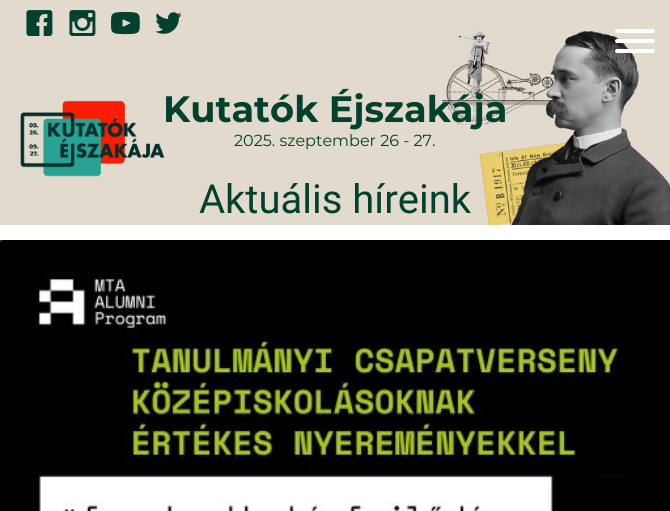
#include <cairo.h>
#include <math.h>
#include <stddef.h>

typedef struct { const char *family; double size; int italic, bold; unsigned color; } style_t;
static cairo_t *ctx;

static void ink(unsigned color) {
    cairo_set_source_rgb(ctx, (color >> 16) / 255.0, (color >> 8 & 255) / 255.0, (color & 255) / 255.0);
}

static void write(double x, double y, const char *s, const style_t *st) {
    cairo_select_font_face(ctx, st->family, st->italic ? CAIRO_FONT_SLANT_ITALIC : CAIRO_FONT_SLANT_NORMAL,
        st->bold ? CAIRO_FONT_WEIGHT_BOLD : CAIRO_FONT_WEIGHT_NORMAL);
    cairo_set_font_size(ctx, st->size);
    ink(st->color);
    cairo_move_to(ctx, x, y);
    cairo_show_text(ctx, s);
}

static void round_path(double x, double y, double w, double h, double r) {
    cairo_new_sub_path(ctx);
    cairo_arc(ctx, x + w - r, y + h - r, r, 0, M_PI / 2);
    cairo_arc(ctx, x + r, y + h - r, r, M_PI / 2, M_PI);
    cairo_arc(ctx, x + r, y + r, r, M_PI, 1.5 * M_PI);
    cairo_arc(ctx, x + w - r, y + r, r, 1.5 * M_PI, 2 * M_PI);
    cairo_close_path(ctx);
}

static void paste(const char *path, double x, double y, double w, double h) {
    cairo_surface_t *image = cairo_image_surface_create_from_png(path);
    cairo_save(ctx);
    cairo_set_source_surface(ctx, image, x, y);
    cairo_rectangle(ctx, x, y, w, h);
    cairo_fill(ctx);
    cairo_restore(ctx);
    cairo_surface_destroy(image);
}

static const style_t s1 = {"Montserrat", 36.75, 0, 1, 0x03412f};
static const style_t s2 = {"Montserrat", 16, 0, 0, 0x03412f};
static const style_t s3 = {"Roboto", 40, 0, 0, 0x03412f};

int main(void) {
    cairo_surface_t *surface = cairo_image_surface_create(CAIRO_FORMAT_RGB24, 670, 511);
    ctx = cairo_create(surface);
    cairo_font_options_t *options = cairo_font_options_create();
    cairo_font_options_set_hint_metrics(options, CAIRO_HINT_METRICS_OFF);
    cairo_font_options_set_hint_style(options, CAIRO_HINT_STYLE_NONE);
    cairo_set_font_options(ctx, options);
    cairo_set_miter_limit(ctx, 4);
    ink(0xffffff);
    cairo_paint(ctx);
    paste("pic1.png", 0, 0, 670, 225);
    paste("pic2.png", 26, 10, 27, 26);
    paste("pic3.png", 69, 10, 27, 26);
    paste("pic4.png", 111, 11, 29, 24);
    paste("pic5.png", 155, 12, 27, 22);
    ink(0xffffff);
    round_path(615, 39, 40, 4, 2);
    cairo_fill(ctx);
    round_path(615, 29, 40, 4, 2);
    cairo_fill(ctx);
    round_path(615, 49, 40, 4, 2);
    cairo_fill(ctx);
    paste("pic6.png", 20, 100, 145, 77);
    write(163, 122, "Kutatók Éjszakája", &s1);
    write(234, 146, "2025. szeptember 26 - 27.", &s2);
    write(199, 213, "Aktuális híreink", &s3);
    paste("pic7.png", 0, 240, 670, 271);
    cairo_surface_write_to_png(surface, "screenshot.png");
    cairo_font_options_destroy(options);
    cairo_destroy(ctx);
    cairo_surface_destroy(surface);
    return 0;
}
